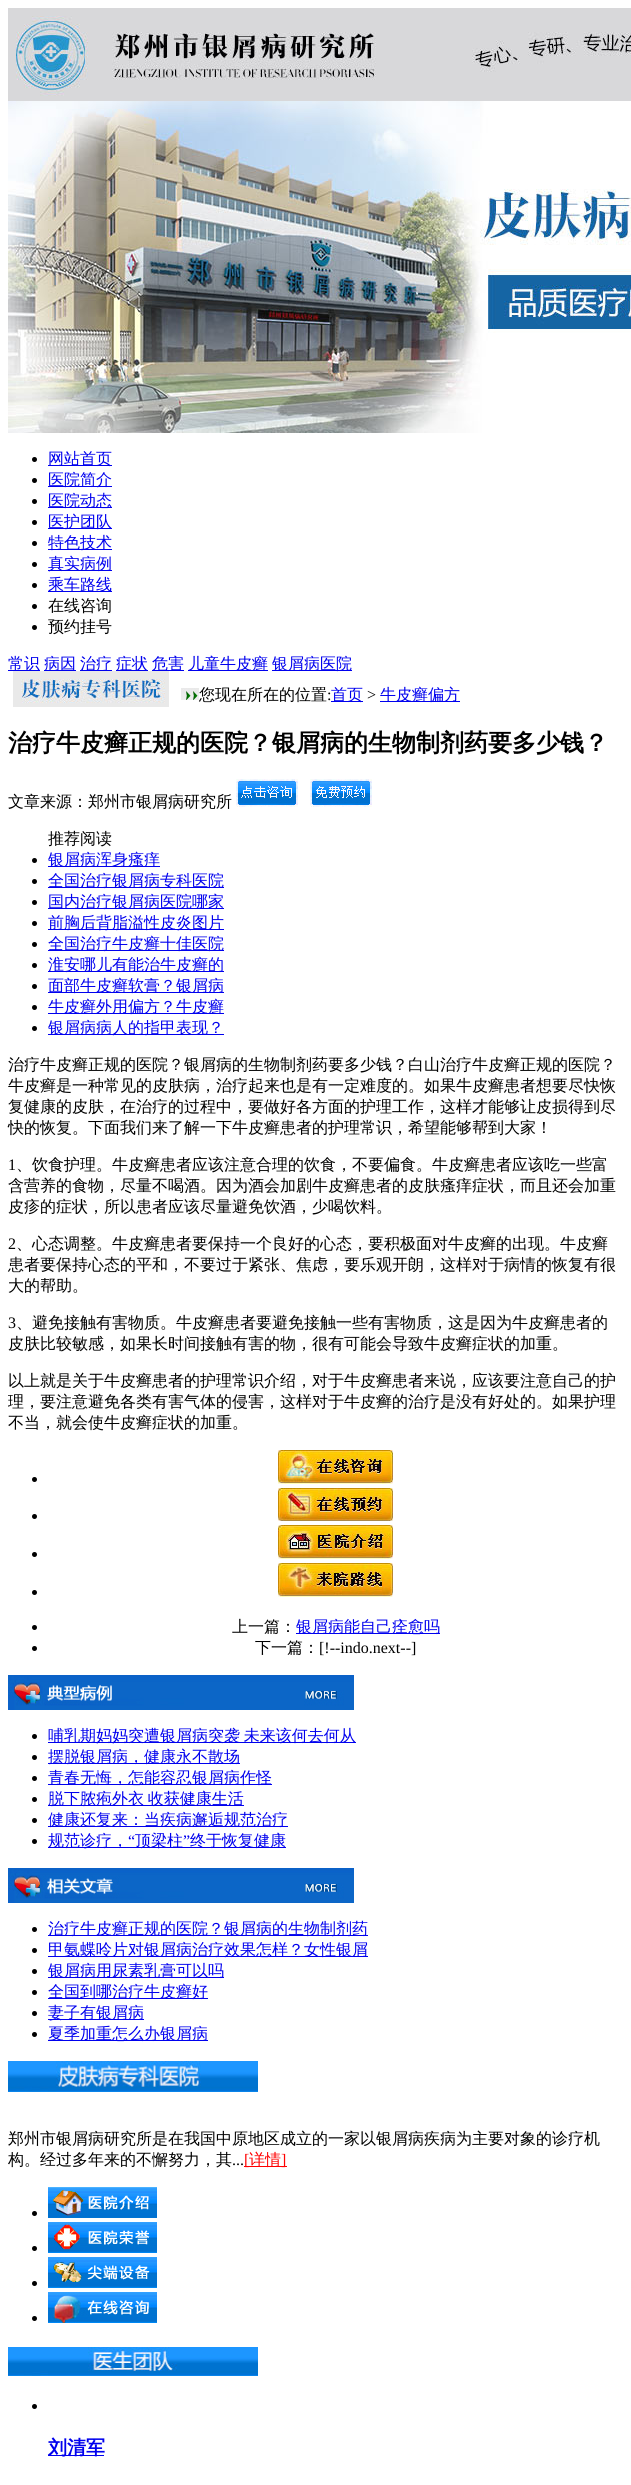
#include <cairo.h>
#include <math.h>
#include <stddef.h>

typedef struct { const char *family; double size; int italic, bold; unsigned color; } style_t;
static cairo_t *ctx;

static void ink(unsigned color) {
    cairo_set_source_rgb(ctx, (color >> 16) / 255.0, (color >> 8 & 255) / 255.0, (color & 255) / 255.0);
}

static void write(double x, double y, const char *s, const style_t *st) {
    cairo_select_font_face(ctx, st->family, st->italic ? CAIRO_FONT_SLANT_ITALIC : CAIRO_FONT_SLANT_NORMAL,
        st->bold ? CAIRO_FONT_WEIGHT_BOLD : CAIRO_FONT_WEIGHT_NORMAL);
    cairo_set_font_size(ctx, st->size);
    ink(st->color);
    cairo_move_to(ctx, x, y);
    cairo_show_text(ctx, s);
}

static void write_spaced(double x, double y, const char *s, double letter, double word) {
    cairo_move_to(ctx, x, y);
    while (*s) {
        char ch[5] = {0};
        int n = 0;
        do ch[n++] = *s++; while ((*s & 0xC0) == 0x80);
        cairo_show_text(ctx, ch);
        cairo_rel_move_to(ctx, letter + word * (*ch == ' '), 0);
    }
}

static void block(double x, double y, double w, double h, unsigned color) {
    ink(color);
    cairo_rectangle(ctx, x, y, w, h);
    cairo_fill(ctx);
}

static void paste(const char *path, double x, double y, double w, double h) {
    cairo_surface_t *image = cairo_image_surface_create_from_png(path);
    cairo_save(ctx);
    cairo_set_source_surface(ctx, image, x, y);
    cairo_rectangle(ctx, x, y, w, h);
    cairo_fill(ctx);
    cairo_restore(ctx);
    cairo_surface_destroy(image);
}

static const style_t s1 = {"WenQuanYi Zen Hei Medium", 16, 0, 0, 0x0000ee};
static const style_t s2 = {"WenQuanYi Zen Hei Medium", 16, 0, 0, 0x000000};
static const style_t s3 = {"Liberation Serif", 16, 0, 0, 0x000000};
static const style_t s4 = {"WenQuanYi Zen Hei", 24, 0, 1, 0x000000};
static const style_t s5 = {"Liberation Serif", 16, 0, 0, 0x0000ee};
static const style_t s6 = {"Liberation Serif", 16, 0, 0, 0xff0000};
static const style_t s7 = {"WenQuanYi Zen Hei Medium", 16, 0, 0, 0xff0000};
static const style_t s8 = {"WenQuanYi Zen Hei", 19, 0, 1, 0x0000ee};

int main(void) {
    cairo_surface_t *surface = cairo_image_surface_create(CAIRO_FORMAT_RGB24, 631, 2485);
    ctx = cairo_create(surface);
    cairo_font_options_t *options = cairo_font_options_create();
    cairo_font_options_set_hint_metrics(options, CAIRO_HINT_METRICS_OFF);
    cairo_font_options_set_hint_style(options, CAIRO_HINT_STYLE_NONE);
    cairo_set_font_options(ctx, options);
    cairo_set_miter_limit(ctx, 4);
    ink(0xffffff);
    cairo_paint(ctx);
    paste("pic1.png", 8, 8, 623, 93);
    paste("pic2.png", 8, 101, 623, 332);
    ink(0x000000);
    cairo_arc(ctx, 34.5, 459.5, 2.5, 0, 2 * M_PI);
    cairo_fill(ctx);
    block(48, 465, 64, 1, 0x0000ee);
    write(48, 464, "网站首页", &s1);
    ink(0x000000);
    cairo_new_path(ctx);
    cairo_arc(ctx, 34.5, 480.5, 2.5, 0, 2 * M_PI);
    cairo_fill(ctx);
    block(48, 486, 64, 1, 0x0000ee);
    write(48, 485, "医院简介", &s1);
    ink(0x000000);
    cairo_new_path(ctx);
    cairo_arc(ctx, 34.5, 501.5, 2.5, 0, 2 * M_PI);
    cairo_fill(ctx);
    block(48, 507, 64, 1, 0x0000ee);
    write(48, 506, "医院动态", &s1);
    ink(0x000000);
    cairo_new_path(ctx);
    cairo_arc(ctx, 34.5, 522.5, 2.5, 0, 2 * M_PI);
    cairo_fill(ctx);
    block(48, 528, 64, 1, 0x0000ee);
    write(48, 527, "医护团队", &s1);
    ink(0x000000);
    cairo_new_path(ctx);
    cairo_arc(ctx, 34.5, 543.5, 2.5, 0, 2 * M_PI);
    cairo_fill(ctx);
    block(48, 549, 64, 1, 0x0000ee);
    write(48, 548, "特色技术", &s1);
    ink(0x000000);
    cairo_new_path(ctx);
    cairo_arc(ctx, 34.5, 564.5, 2.5, 0, 2 * M_PI);
    cairo_fill(ctx);
    block(48, 570, 64, 1, 0x0000ee);
    write(48, 569, "真实病例", &s1);
    ink(0x000000);
    cairo_new_path(ctx);
    cairo_arc(ctx, 34.5, 585.5, 2.5, 0, 2 * M_PI);
    cairo_fill(ctx);
    block(48, 591, 64, 1, 0x0000ee);
    write(48, 590, "乘车路线", &s1);
    ink(0x000000);
    cairo_new_path(ctx);
    cairo_arc(ctx, 34.5, 606.5, 2.5, 0, 2 * M_PI);
    cairo_fill(ctx);
    write(48, 611, "在线咨询", &s2);
    cairo_new_path(ctx);
    cairo_arc(ctx, 34.5, 627.5, 2.5, 0, 2 * M_PI);
    cairo_fill(ctx);
    write(48, 632, "预约挂号", &s2);
    block(8, 670, 32, 1, 0x0000ee);
    write(8, 669, "常识", &s1);
    block(44, 670, 32, 1, 0x0000ee);
    write(44, 669, "病因", &s1);
    block(80, 670, 32, 1, 0x0000ee);
    write(80, 669, "治疗", &s1);
    block(116, 670, 32, 1, 0x0000ee);
    write(116, 669, "症状", &s1);
    block(152, 670, 32, 1, 0x0000ee);
    write(152, 669, "危害", &s1);
    block(188, 670, 80, 1, 0x0000ee);
    write(188, 669, "儿童牛皮癣", &s1);
    block(272, 670, 80, 1, 0x0000ee);
    write(272, 669, "银屑病医院", &s1);
    paste("pic3.png", 13, 671, 156, 36);
    paste("pic4.png", 181, 688, 18, 12);
    write(199, 700, "您现在所在的位置", &s2);
    write(327, 700, ":", &s3);
    block(331, 701, 32, 1, 0x0000ee);
    write(331, 700, "首页", &s1);
    write(367, 700, ">", &s3);
    block(380, 701, 80, 1, 0x0000ee);
    write(380, 700, "牛皮癣偏方", &s1);
    write(8, 751, "治疗牛皮癣正规的医院？银屑病的生物制剂药要多少钱？", &s4);
    write(8, 807, "文章来源：郑州市银屑病研究所", &s2);
    paste("pic5.png", 236, 779, 62, 28);
    paste("pic6.png", 310, 779, 62, 28);
    write(48, 844, "推荐阅读", &s2);
    cairo_new_path(ctx);
    cairo_arc(ctx, 34.5, 860.5, 2.5, 0, 2 * M_PI);
    cairo_fill(ctx);
    block(48, 866, 112, 1, 0x0000ee);
    write(48, 865, "银屑病浑身瘙痒", &s1);
    ink(0x000000);
    cairo_new_path(ctx);
    cairo_arc(ctx, 34.5, 881.5, 2.5, 0, 2 * M_PI);
    cairo_fill(ctx);
    block(48, 887, 176, 1, 0x0000ee);
    write(48, 886, "全国治疗银屑病专科医院", &s1);
    ink(0x000000);
    cairo_new_path(ctx);
    cairo_arc(ctx, 34.5, 902.5, 2.5, 0, 2 * M_PI);
    cairo_fill(ctx);
    block(48, 908, 176, 1, 0x0000ee);
    write(48, 907, "国内治疗银屑病医院哪家", &s1);
    ink(0x000000);
    cairo_new_path(ctx);
    cairo_arc(ctx, 34.5, 923.5, 2.5, 0, 2 * M_PI);
    cairo_fill(ctx);
    block(48, 929, 176, 1, 0x0000ee);
    write(48, 928, "前胸后背脂溢性皮炎图片", &s1);
    ink(0x000000);
    cairo_new_path(ctx);
    cairo_arc(ctx, 34.5, 944.5, 2.5, 0, 2 * M_PI);
    cairo_fill(ctx);
    block(48, 950, 176, 1, 0x0000ee);
    write(48, 949, "全国治疗牛皮癣十佳医院", &s1);
    ink(0x000000);
    cairo_new_path(ctx);
    cairo_arc(ctx, 34.5, 965.5, 2.5, 0, 2 * M_PI);
    cairo_fill(ctx);
    block(48, 971, 176, 1, 0x0000ee);
    write(48, 970, "淮安哪儿有能治牛皮癣的", &s1);
    ink(0x000000);
    cairo_new_path(ctx);
    cairo_arc(ctx, 34.5, 986.5, 2.5, 0, 2 * M_PI);
    cairo_fill(ctx);
    block(48, 992, 176, 1, 0x0000ee);
    write(48, 991, "面部牛皮癣软膏？银屑病", &s1);
    ink(0x000000);
    cairo_new_path(ctx);
    cairo_arc(ctx, 34.5, 1007.5, 2.5, 0, 2 * M_PI);
    cairo_fill(ctx);
    block(48, 1013, 176, 1, 0x0000ee);
    write(48, 1012, "牛皮癣外用偏方？牛皮癣", &s1);
    ink(0x000000);
    cairo_new_path(ctx);
    cairo_arc(ctx, 34.5, 1028.5, 2.5, 0, 2 * M_PI);
    cairo_fill(ctx);
    block(48, 1034, 176, 1, 0x0000ee);
    write(48, 1033, "银屑病病人的指甲表现？", &s1);
    write(8, 1070, "治疗牛皮癣正规的医院？银屑病的生物制剂药要多少钱？白山治疗牛皮癣正规的医院？", &s2);
    write(8, 1091, "牛皮癣是一种常见的皮肤病，治疗起来也是有一定难度的。如果牛皮癣患者想要尽快恢", &s2);
    write(8, 1112, "复健康的皮肤，在治疗的过程中，要做好各方面的护理工作，这样才能够让皮损得到尽", &s2);
    write(8, 1133, "快的恢复。下面我们来了解一下牛皮癣患者的护理常识，希望能够帮到大家！", &s2);
    write(8, 1170, "1", &s3);
    write(16, 1170, "、饮食护理。牛皮癣患者应该注意合理的饮食，不要偏食。牛皮癣患者应该吃一些富", &s2);
    write(8, 1191, "含营养的食物，尽量不喝酒。因为酒会加剧牛皮癣患者的皮肤瘙痒症状，而且还会加重", &s2);
    write(8, 1212, "皮疹的症状，所以患者应该尽量避免饮酒，少喝饮料。", &s2);
    write(8, 1249, "2", &s3);
    write(16, 1249, "、心态调整。牛皮癣患者要保持一个良好的心态，要积极面对牛皮癣的出现。牛皮癣", &s2);
    write(8, 1270, "患者要保持心态的平和，不要过于紧张、焦虑，要乐观开朗，这样对于病情的恢复有很", &s2);
    write(8, 1291, "大的帮助。", &s2);
    write(8, 1328, "3", &s3);
    write(16, 1328, "、避免接触有害物质。牛皮癣患者要避免接触一些有害物质，这是因为牛皮癣患者的", &s2);
    write(8, 1349, "皮肤比较敏感，如果长时间接触有害的物，很有可能会导致牛皮癣症状的加重。", &s2);
    write(8, 1386, "以上就是关于牛皮癣患者的护理常识介绍，对于牛皮癣患者来说，应该要注意自己的护", &s2);
    write(8, 1407, "理，要注意避免各类有害气体的侵害，这样对于牛皮癣的治疗是没有好处的。如果护理", &s2);
    write(8, 1428, "不当，就会使牛皮癣症状的加重。", &s2);
    cairo_new_path(ctx);
    cairo_arc(ctx, 34.5, 1479.5, 2.5, 0, 2 * M_PI);
    cairo_fill(ctx);
    paste("pic7.png", 278, 1450, 115, 34);
    cairo_arc(ctx, 34.5, 1516.5, 2.5, 0, 2 * M_PI);
    cairo_fill(ctx);
    paste("pic8.png", 278, 1488, 115, 33);
    cairo_arc(ctx, 34.5, 1554.5, 2.5, 0, 2 * M_PI);
    cairo_fill(ctx);
    paste("pic9.png", 278, 1525, 115, 34);
    cairo_arc(ctx, 34.5, 1592.5, 2.5, 0, 2 * M_PI);
    cairo_fill(ctx);
    paste("pic10.png", 278, 1563, 115, 34);
    cairo_arc(ctx, 34.5, 1627.5, 2.5, 0, 2 * M_PI);
    cairo_fill(ctx);
    write(232, 1632, "上一篇：", &s2);
    block(296, 1633, 144, 1, 0x0000ee);
    write(296, 1632, "银屑病能自己痊愈吗", &s1);
    ink(0x000000);
    cairo_new_path(ctx);
    cairo_arc(ctx, 34.5, 1648.5, 2.5, 0, 2 * M_PI);
    cairo_fill(ctx);
    write(255, 1653, "下一篇：", &s2);
    write(319, 1653, "[!--indo.next--]", &s3);
    paste("pic11.png", 8, 1675, 346, 35);
    cairo_arc(ctx, 34.5, 1736.5, 2.5, 0, 2 * M_PI);
    cairo_fill(ctx);
    block(48, 1742, 308, 1, 0x0000ee);
    cairo_select_font_face(ctx, "WenQuanYi Zen Hei Medium", CAIRO_FONT_SLANT_NORMAL, CAIRO_FONT_WEIGHT_NORMAL);
    write_spaced(48, 1741, "哺乳期妈妈突遭银屑病突袭 未来该何去何从", 0, -1);
    ink(0x000000);
    cairo_new_path(ctx);
    cairo_arc(ctx, 34.5, 1757.5, 2.5, 0, 2 * M_PI);
    cairo_fill(ctx);
    block(48, 1763, 192, 1, 0x0000ee);
    write(48, 1762, "摆脱银屑病，健康永不散场", &s1);
    ink(0x000000);
    cairo_new_path(ctx);
    cairo_arc(ctx, 34.5, 1778.5, 2.5, 0, 2 * M_PI);
    cairo_fill(ctx);
    block(48, 1784, 224, 1, 0x0000ee);
    write(48, 1783, "青春无悔，怎能容忍银屑病作怪", &s1);
    ink(0x000000);
    cairo_new_path(ctx);
    cairo_arc(ctx, 34.5, 1799.5, 2.5, 0, 2 * M_PI);
    cairo_fill(ctx);
    block(48, 1805, 196, 1, 0x0000ee);
    write_spaced(48, 1804, "脱下脓疱外衣 收获健康生活", 0, -1);
    ink(0x000000);
    cairo_new_path(ctx);
    cairo_arc(ctx, 34.5, 1820.5, 2.5, 0, 2 * M_PI);
    cairo_fill(ctx);
    block(48, 1826, 240, 1, 0x0000ee);
    write(48, 1825, "健康还复来：当疾病邂逅规范治疗", &s1);
    block(48, 1847, 238, 1, 0x0000ee);
    write(48, 1846, "规范诊疗，", &s1);
    write(128, 1846, "“", &s5);
    write(135, 1846, "顶梁柱", &s1);
    write(183, 1846, "”", &s5);
    write(190, 1846, "终于恢复健康", &s1);
    ink(0x000000);
    cairo_new_path(ctx);
    cairo_arc(ctx, 34.5, 1841.5, 2.5, 0, 2 * M_PI);
    cairo_fill(ctx);
    paste("pic12.png", 8, 1868, 346, 35);
    cairo_arc(ctx, 34.5, 1929.5, 2.5, 0, 2 * M_PI);
    cairo_fill(ctx);
    block(48, 1935, 320, 1, 0x0000ee);
    write(48, 1934, "治疗牛皮癣正规的医院？银屑病的生物制剂药", &s1);
    ink(0x000000);
    cairo_new_path(ctx);
    cairo_arc(ctx, 34.5, 1950.5, 2.5, 0, 2 * M_PI);
    cairo_fill(ctx);
    block(48, 1956, 320, 1, 0x0000ee);
    write(48, 1955, "甲氨蝶呤片对银屑病治疗效果怎样？女性银屑", &s1);
    ink(0x000000);
    cairo_new_path(ctx);
    cairo_arc(ctx, 34.5, 1971.5, 2.5, 0, 2 * M_PI);
    cairo_fill(ctx);
    block(48, 1977, 176, 1, 0x0000ee);
    write(48, 1976, "银屑病用尿素乳膏可以吗", &s1);
    ink(0x000000);
    cairo_new_path(ctx);
    cairo_arc(ctx, 34.5, 1992.5, 2.5, 0, 2 * M_PI);
    cairo_fill(ctx);
    block(48, 1998, 160, 1, 0x0000ee);
    write(48, 1997, "全国到哪治疗牛皮癣好", &s1);
    ink(0x000000);
    cairo_new_path(ctx);
    cairo_arc(ctx, 34.5, 2013.5, 2.5, 0, 2 * M_PI);
    cairo_fill(ctx);
    block(48, 2019, 96, 1, 0x0000ee);
    write(48, 2018, "妻子有银屑病", &s1);
    ink(0x000000);
    cairo_new_path(ctx);
    cairo_arc(ctx, 34.5, 2034.5, 2.5, 0, 2 * M_PI);
    cairo_fill(ctx);
    block(48, 2040, 160, 1, 0x0000ee);
    write(48, 2039, "夏季加重怎么办银屑病", &s1);
    paste("pic13.png", 8, 2061, 250, 31);
    write(8, 2144, "郑州市银屑病研究所是在我国中原地区成立的一家以银屑病疾病为主要对象的诊疗机", &s2);
    write(8, 2165, "构。经过多年来的不懈努力，其", &s2);
    write(232, 2165, "...", &s3);
    block(244, 2166, 43, 1, 0xff0000);
    write(244, 2165, "[", &s6);
    write(249, 2165, "详情", &s7);
    write(281, 2165, "]", &s6);
    ink(0x000000);
    cairo_new_path(ctx);
    cairo_arc(ctx, 34.5, 2213.5, 2.5, 0, 2 * M_PI);
    cairo_fill(ctx);
    paste("pic14.png", 48, 2187, 109, 31);
    cairo_arc(ctx, 34.5, 2248.5, 2.5, 0, 2 * M_PI);
    cairo_fill(ctx);
    paste("pic15.png", 48, 2222, 109, 31);
    cairo_arc(ctx, 34.5, 2283.5, 2.5, 0, 2 * M_PI);
    cairo_fill(ctx);
    paste("pic16.png", 48, 2257, 109, 31);
    cairo_arc(ctx, 34.5, 2318.5, 2.5, 0, 2 * M_PI);
    cairo_fill(ctx);
    paste("pic17.png", 48, 2292, 109, 31);
    paste("pic18.png", 8, 2347, 250, 29);
    cairo_arc(ctx, 34.5, 2406.5, 2.5, 0, 2 * M_PI);
    cairo_fill(ctx);
    block(48, 2455, 56, 1, 0x0000ee);
    write(48, 2454, "刘清军", &s8);
    cairo_surface_write_to_png(surface, "screenshot.png");
    cairo_font_options_destroy(options);
    cairo_destroy(ctx);
    cairo_surface_destroy(surface);
    return 0;
}
